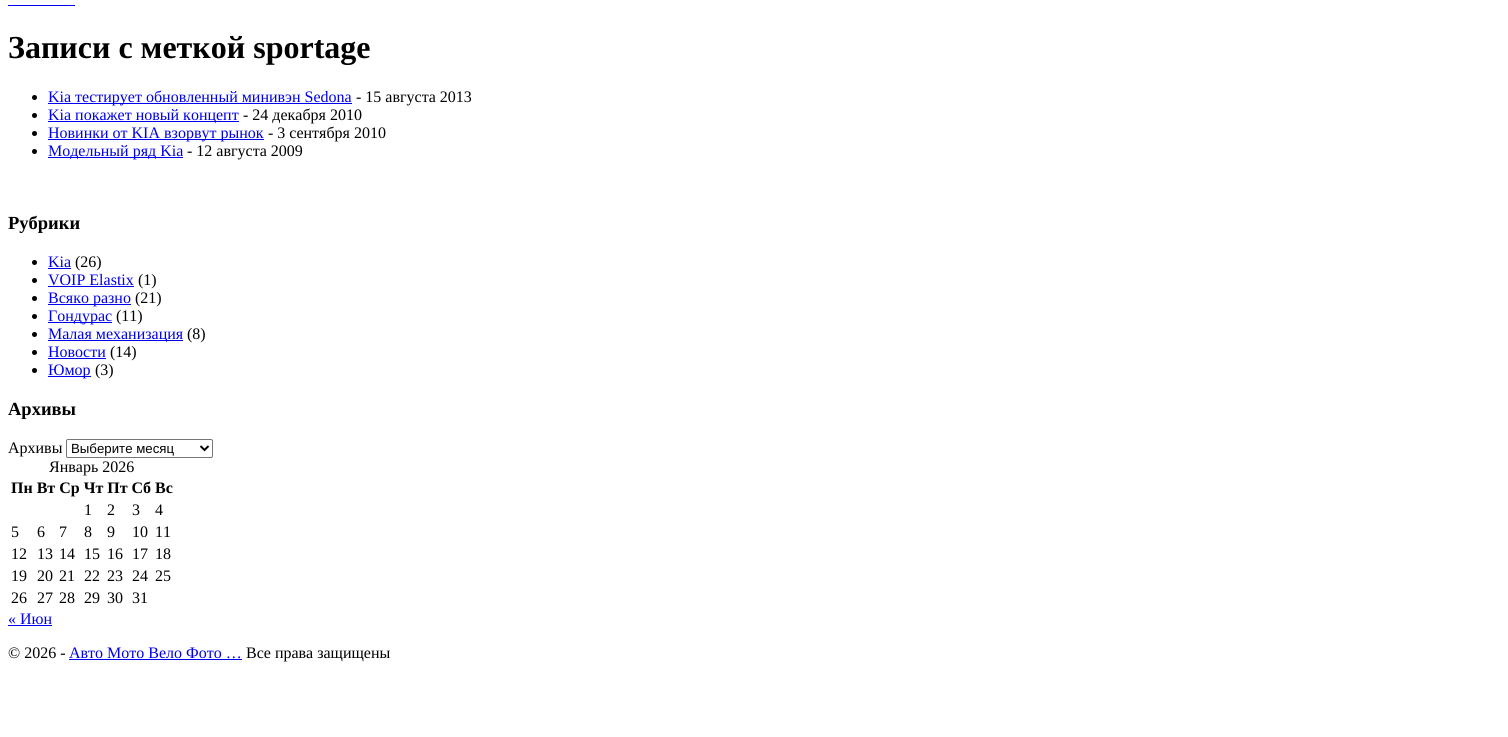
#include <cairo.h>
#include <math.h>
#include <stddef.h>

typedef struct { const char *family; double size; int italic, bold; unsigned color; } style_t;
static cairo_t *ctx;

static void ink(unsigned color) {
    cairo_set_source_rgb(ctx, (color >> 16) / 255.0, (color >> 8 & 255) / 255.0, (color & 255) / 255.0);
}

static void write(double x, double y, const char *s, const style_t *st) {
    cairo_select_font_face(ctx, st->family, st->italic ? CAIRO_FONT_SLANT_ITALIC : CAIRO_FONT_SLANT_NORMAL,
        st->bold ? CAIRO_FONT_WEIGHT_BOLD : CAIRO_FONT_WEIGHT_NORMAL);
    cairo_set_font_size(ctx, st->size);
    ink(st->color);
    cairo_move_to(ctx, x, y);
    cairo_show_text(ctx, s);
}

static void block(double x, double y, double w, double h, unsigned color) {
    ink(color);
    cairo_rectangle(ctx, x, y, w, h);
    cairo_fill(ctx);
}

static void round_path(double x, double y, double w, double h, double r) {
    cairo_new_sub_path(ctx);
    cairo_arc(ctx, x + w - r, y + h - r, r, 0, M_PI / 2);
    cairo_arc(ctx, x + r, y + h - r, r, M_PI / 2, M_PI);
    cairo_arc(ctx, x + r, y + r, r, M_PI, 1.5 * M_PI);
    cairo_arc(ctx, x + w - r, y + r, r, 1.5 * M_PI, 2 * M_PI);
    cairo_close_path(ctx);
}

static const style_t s1 = {"Liberation Serif", 32, 0, 1, 0x000000};
static const style_t s2 = {"Liberation Serif", 16, 0, 0, 0x0000ee};
static const style_t s3 = {"Liberation Serif", 16, 0, 0, 0x000000};
static const style_t s4 = {"Liberation Serif", 18.5, 0, 1, 0x000000};
static const style_t s5 = {"Liberation Sans", 13.25, 0, 0, 0x000000};
static const style_t s6 = {"Liberation Serif", 16, 0, 1, 0x000000};

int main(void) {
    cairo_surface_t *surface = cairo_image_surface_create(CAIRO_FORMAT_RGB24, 1508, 737);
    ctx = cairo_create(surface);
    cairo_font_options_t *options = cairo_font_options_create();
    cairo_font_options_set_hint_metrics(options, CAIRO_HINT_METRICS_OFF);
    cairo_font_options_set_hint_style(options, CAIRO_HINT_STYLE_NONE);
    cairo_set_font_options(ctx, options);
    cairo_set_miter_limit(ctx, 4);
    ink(0xffffff);
    cairo_paint(ctx);
    block(8, 5, 67, 1, 0x0000ee);
    write(8, 58, "Записи с меткой sportage", &s1);
    cairo_new_path(ctx);
    cairo_arc(ctx, 34.5, 97.5, 2.5, 0, 2 * M_PI);
    cairo_fill(ctx);
    block(48, 103, 304, 1, 0x0000ee);
    write(48, 102, "Kia тестирует обновленный минивэн Sedona", &s2);
    write(356, 102, "- 15 августа 2013", &s3);
    cairo_new_path(ctx);
    cairo_arc(ctx, 34.5, 115.5, 2.5, 0, 2 * M_PI);
    cairo_fill(ctx);
    block(48, 121, 191, 1, 0x0000ee);
    write(48, 120, "Kia покажет новый концепт", &s2);
    write(243, 120, "- 24 декабря 2010", &s3);
    cairo_new_path(ctx);
    cairo_arc(ctx, 34.5, 133.5, 2.5, 0, 2 * M_PI);
    cairo_fill(ctx);
    block(48, 139, 216, 1, 0x0000ee);
    write(48, 138, "Новинки от KIA взорвут рынок", &s2);
    write(268, 138, "- 3 сентября 2010", &s3);
    cairo_new_path(ctx);
    cairo_arc(ctx, 34.5, 151.5, 2.5, 0, 2 * M_PI);
    cairo_fill(ctx);
    block(48, 157, 135, 1, 0x0000ee);
    write(48, 156, "Модельный ряд Kia", &s2);
    write(187, 156, "- 12 августа 2009", &s3);
    write(8, 229, "Рубрики", &s4);
    cairo_new_path(ctx);
    cairo_arc(ctx, 34.5, 262.5, 2.5, 0, 2 * M_PI);
    cairo_fill(ctx);
    write(48, 267, "Kia", &s2);
    block(48, 268, 23, 1, 0x0000ee);
    write(75, 267, "(26)", &s3);
    cairo_new_path(ctx);
    cairo_arc(ctx, 34.5, 280.5, 2.5, 0, 2 * M_PI);
    cairo_fill(ctx);
    write(48, 285, "VOIP Elastix", &s2);
    block(48, 286, 86, 1, 0x0000ee);
    write(138, 285, "(1)", &s3);
    cairo_new_path(ctx);
    cairo_arc(ctx, 34.5, 298.5, 2.5, 0, 2 * M_PI);
    cairo_fill(ctx);
    block(48, 304, 83, 1, 0x0000ee);
    write(48, 303, "Всяко разно", &s2);
    write(135, 303, "(21)", &s3);
    cairo_new_path(ctx);
    cairo_arc(ctx, 34.5, 316.5, 2.5, 0, 2 * M_PI);
    cairo_fill(ctx);
    block(48, 322, 64, 1, 0x0000ee);
    write(48, 321, "Гондурас", &s2);
    write(116, 321, "(11)", &s3);
    cairo_new_path(ctx);
    cairo_arc(ctx, 34.5, 334.5, 2.5, 0, 2 * M_PI);
    cairo_fill(ctx);
    block(48, 340, 135, 1, 0x0000ee);
    write(48, 339, "Малая механизация", &s2);
    write(187, 339, "(8)", &s3);
    cairo_new_path(ctx);
    cairo_arc(ctx, 34.5, 352.5, 2.5, 0, 2 * M_PI);
    cairo_fill(ctx);
    write(48, 357, "Новости", &s2);
    block(48, 358, 58, 1, 0x0000ee);
    write(110, 357, "(14)", &s3);
    cairo_new_path(ctx);
    cairo_arc(ctx, 34.5, 370.5, 2.5, 0, 2 * M_PI);
    cairo_fill(ctx);
    block(48, 376, 43, 1, 0x0000ee);
    write(48, 375, "Юмор", &s2);
    write(95, 375, "(3)", &s3);
    write(8, 415, "Архивы", &s4);
    write(8, 453, "Архивы", &s3);
    round_path(66.5, 439.5, 146, 18, 1.5);
    ink(0x767676);
    cairo_set_line_width(ctx, 1);
    cairo_stroke(ctx);
    cairo_new_path(ctx);
    cairo_move_to(ctx, 200.5, 446);
    cairo_line_to(ctx, 204.5, 450);
    cairo_line_to(ctx, 208.5, 446);
    ink(0x000000);
    cairo_set_line_width(ctx, 2);
    cairo_stroke(ctx);
    write(71, 453, "Выберите месяц", &s5);
    write(49, 472, "Январь 2026", &s3);
    write(11, 493, "Пн Вт Ср Чт Пт Сб Вс", &s6);
    write(84, 515, "1", &s3);
    write(107, 515, "2", &s3);
    write(132, 515, "3", &s3);
    write(155, 515, "4", &s3);
    write(11, 537, "5", &s3);
    write(37, 537, "6", &s3);
    write(59, 537, "7", &s3);
    write(84, 537, "8", &s3);
    write(107, 537, "9", &s3);
    write(132, 537, "10", &s3);
    write(155, 537, "11", &s3);
    write(11, 559, "12", &s3);
    write(37, 559, "13", &s3);
    write(59, 559, "14", &s3);
    write(84, 559, "15", &s3);
    write(107, 559, "16", &s3);
    write(132, 559, "17", &s3);
    write(155, 559, "18", &s3);
    write(11, 581, "19", &s3);
    write(37, 581, "20", &s3);
    write(59, 581, "21", &s3);
    write(84, 581, "22", &s3);
    write(107, 581, "23", &s3);
    write(132, 581, "24", &s3);
    write(155, 581, "25", &s3);
    write(11, 603, "26", &s3);
    write(37, 603, "27", &s3);
    write(59, 603, "28", &s3);
    write(84, 603, "29", &s3);
    write(107, 603, "30", &s3);
    write(132, 603, "31", &s3);
    write(8, 624, "« Июн", &s2);
    block(8, 625, 44, 1, 0x0000ee);
    write(8, 658, "© 2026 -", &s3);
    write(69, 658, "Авто Мото Вело Фото …", &s2);
    block(69, 659, 173, 1, 0x0000ee);
    write(246, 658, "Все права защищены", &s3);
    cairo_surface_write_to_png(surface, "screenshot.png");
    cairo_font_options_destroy(options);
    cairo_destroy(ctx);
    cairo_surface_destroy(surface);
    return 0;
}
